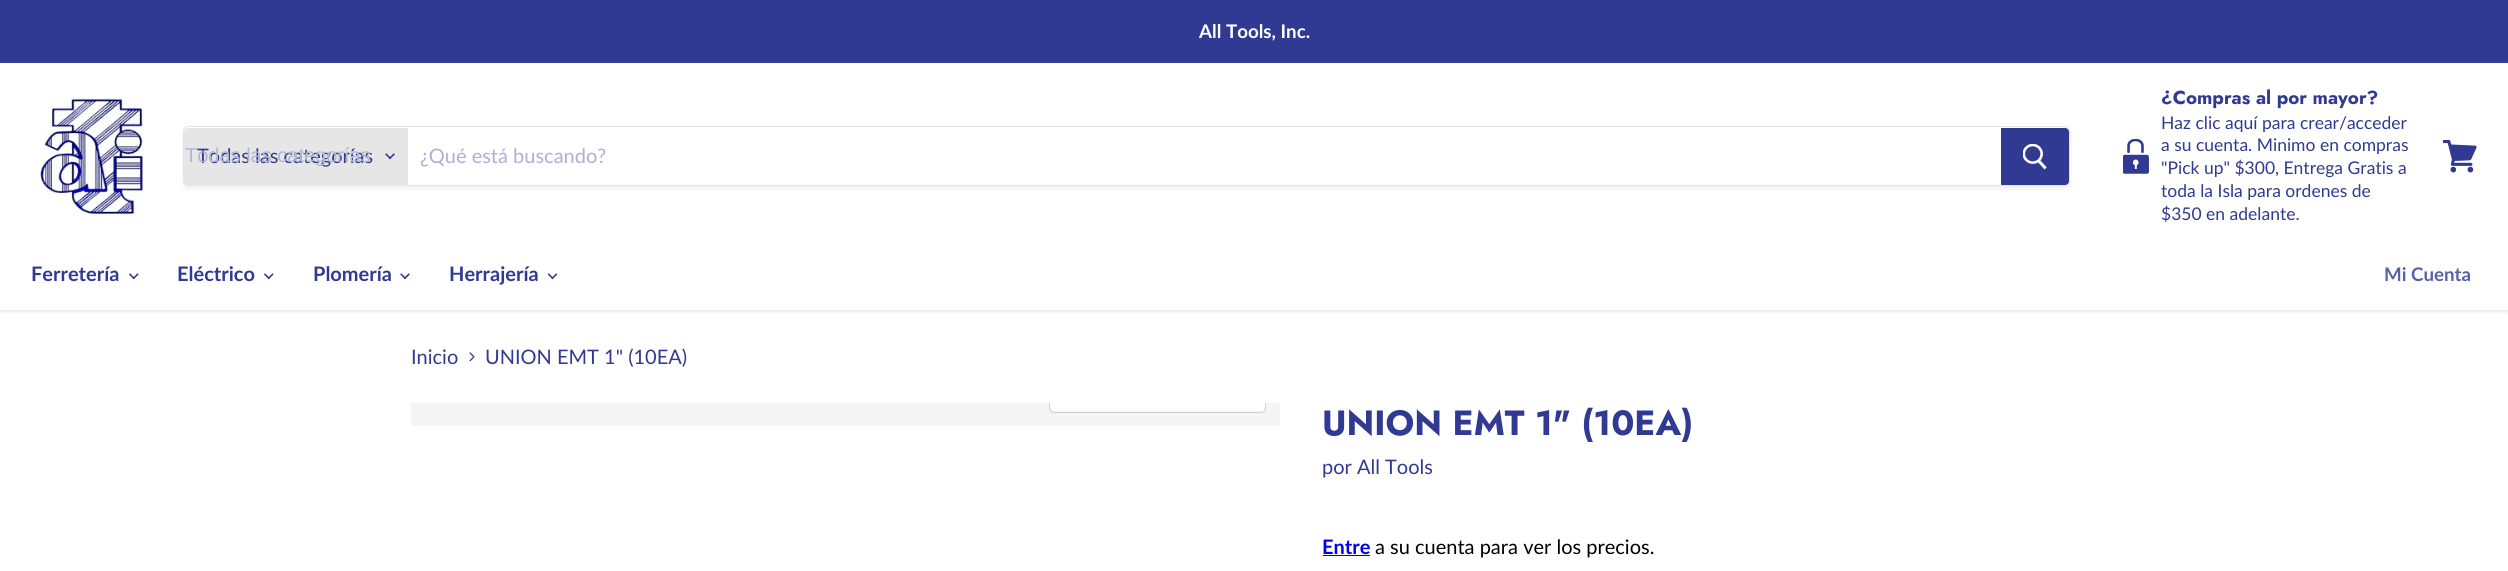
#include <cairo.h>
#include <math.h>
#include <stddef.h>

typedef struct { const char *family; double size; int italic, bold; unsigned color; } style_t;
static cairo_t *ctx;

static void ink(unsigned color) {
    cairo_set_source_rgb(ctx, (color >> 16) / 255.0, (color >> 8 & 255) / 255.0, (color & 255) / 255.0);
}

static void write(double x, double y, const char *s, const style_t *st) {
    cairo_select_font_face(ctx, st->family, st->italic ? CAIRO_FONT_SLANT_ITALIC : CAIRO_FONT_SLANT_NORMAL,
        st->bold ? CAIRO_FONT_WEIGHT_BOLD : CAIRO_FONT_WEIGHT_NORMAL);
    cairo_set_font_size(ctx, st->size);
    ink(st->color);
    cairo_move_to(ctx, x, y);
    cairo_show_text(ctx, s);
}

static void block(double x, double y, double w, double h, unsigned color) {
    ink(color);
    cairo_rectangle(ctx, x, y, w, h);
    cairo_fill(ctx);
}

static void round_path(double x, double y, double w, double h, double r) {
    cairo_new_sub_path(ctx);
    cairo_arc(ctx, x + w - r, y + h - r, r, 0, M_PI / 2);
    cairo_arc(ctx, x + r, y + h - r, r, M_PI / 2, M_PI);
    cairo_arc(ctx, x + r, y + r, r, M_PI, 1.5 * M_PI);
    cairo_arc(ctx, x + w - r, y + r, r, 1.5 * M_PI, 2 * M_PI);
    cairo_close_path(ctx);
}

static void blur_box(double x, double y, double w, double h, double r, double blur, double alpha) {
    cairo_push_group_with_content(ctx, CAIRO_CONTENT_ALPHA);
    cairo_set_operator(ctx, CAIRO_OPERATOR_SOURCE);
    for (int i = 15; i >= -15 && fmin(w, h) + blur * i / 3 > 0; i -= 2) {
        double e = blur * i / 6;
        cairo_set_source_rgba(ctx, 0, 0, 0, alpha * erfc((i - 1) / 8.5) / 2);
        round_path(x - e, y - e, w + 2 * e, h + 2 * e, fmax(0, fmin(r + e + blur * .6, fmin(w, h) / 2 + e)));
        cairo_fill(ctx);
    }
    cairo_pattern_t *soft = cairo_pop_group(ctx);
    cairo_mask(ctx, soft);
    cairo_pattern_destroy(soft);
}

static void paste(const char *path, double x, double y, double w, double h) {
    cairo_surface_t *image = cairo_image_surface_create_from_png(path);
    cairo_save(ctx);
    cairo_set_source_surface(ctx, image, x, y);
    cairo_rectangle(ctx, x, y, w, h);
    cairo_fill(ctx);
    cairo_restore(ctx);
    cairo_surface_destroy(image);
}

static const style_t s1 = {"Lato", 18.75, 0, 1, 0xffffff};
static const style_t s2 = {"Lato", 20, 0, 0, 0x303a92};
static const style_t s3 = {"Liberation Sans", 20, 0, 0, 0xb3b6cf};
static const style_t s4 = {"Lato", 20, 0, 0, 0xacb0d3};
static const style_t s5 = {"Jost", 18.75, 0, 1, 0x303a92};
static const style_t s6 = {"Lato", 17.5, 0, 0, 0x303a92};
static const style_t s7 = {"Lato", 20, 0, 1, 0x303a92};
static const style_t s8 = {"Lato", 18.75, 0, 1, 0x5961a8};
static const style_t s9 = {"Jost", 35, 0, 1, 0x303a92};
static const style_t s10 = {"Lato", 20, 0, 1, 0x0000ee};
static const style_t s11 = {"Lato", 20, 0, 0, 0x000000};

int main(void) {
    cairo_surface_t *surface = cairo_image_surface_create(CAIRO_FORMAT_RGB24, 2508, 571);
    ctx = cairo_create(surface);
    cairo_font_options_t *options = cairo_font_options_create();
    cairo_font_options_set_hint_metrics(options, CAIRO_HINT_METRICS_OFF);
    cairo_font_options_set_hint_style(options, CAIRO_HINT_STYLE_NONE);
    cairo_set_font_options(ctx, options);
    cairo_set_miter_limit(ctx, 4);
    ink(0xffffff);
    cairo_paint(ctx);
    block(0, 0, 2508, 63, 0x303a92);
    write(1199, 38, "All Tools, Inc.", &s1);
    cairo_save(ctx);
    cairo_set_fill_rule(ctx, CAIRO_FILL_RULE_EVEN_ODD);
    cairo_new_path(ctx);
    cairo_move_to(ctx, 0, 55);
    cairo_line_to(ctx, 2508, 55);
    cairo_line_to(ctx, 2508, 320);
    cairo_line_to(ctx, 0, 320);
    cairo_close_path(ctx);
    cairo_move_to(ctx, 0, 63);
    cairo_line_to(ctx, 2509, 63);
    cairo_line_to(ctx, 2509, 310);
    cairo_line_to(ctx, 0, 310);
    cairo_close_path(ctx);
    cairo_clip(ctx);
    ink(0x808080);
    blur_box(0, 64, 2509, 247, 0, 2.5, 0.25);
    cairo_restore(ctx);
    paste("pic1.png", 38, 97, 106, 117);
    cairo_save(ctx);
    cairo_set_fill_rule(ctx, CAIRO_FILL_RULE_EVEN_ODD);
    cairo_new_path(ctx);
    cairo_move_to(ctx, 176, 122);
    cairo_line_to(ctx, 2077, 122);
    cairo_line_to(ctx, 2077, 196);
    cairo_line_to(ctx, 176, 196);
    cairo_close_path(ctx);
    cairo_move_to(ctx, 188, 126);
    cairo_line_to(ctx, 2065, 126);
    cairo_curve_to(ctx, 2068, 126, 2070, 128, 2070, 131);
    cairo_line_to(ctx, 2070, 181);
    cairo_curve_to(ctx, 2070, 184, 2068, 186, 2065, 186);
    cairo_line_to(ctx, 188, 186);
    cairo_curve_to(ctx, 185, 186, 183, 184, 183, 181);
    cairo_line_to(ctx, 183, 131);
    cairo_curve_to(ctx, 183, 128, 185, 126, 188, 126);
    cairo_close_path(ctx);
    cairo_clip(ctx);
    ink(0x808080);
    blur_box(183, 129, 1887, 60, 5, 2, 0.11);
    cairo_restore(ctx);
    round_path(183.5, 126.5, 1886, 59, 4.5);
    cairo_set_source_rgba(ctx, 0.502, 0.502, 0.502, 0.2);
    cairo_set_line_width(ctx, 1);
    cairo_stroke(ctx);
    ink(0xe6e6e6);
    cairo_new_path(ctx);
    cairo_move_to(ctx, 188, 128);
    cairo_line_to(ctx, 408, 128);
    cairo_line_to(ctx, 408, 185);
    cairo_line_to(ctx, 188, 185);
    cairo_curve_to(ctx, 186, 185, 184, 183, 184, 181);
    cairo_line_to(ctx, 184, 132);
    cairo_curve_to(ctx, 184, 130, 186, 128, 188, 128);
    cairo_close_path(ctx);
    cairo_fill(ctx);
    write(197, 163, "Todas las categorías", &s2);
    write(185, 162, "Todas las categorías", &s3);
    paste("pic2.png", 385, 153, 10, 7);
    write(420, 163, "¿Qué está buscando?", &s4);
    ink(0x303a92);
    cairo_new_path(ctx);
    cairo_move_to(ctx, 2001.5, 128.5);
    cairo_line_to(ctx, 2065, 128.5);
    cairo_curve_to(ctx, 2067, 128.5, 2068.5, 130, 2068.5, 132);
    cairo_line_to(ctx, 2068.5, 181);
    cairo_curve_to(ctx, 2068.5, 183, 2067, 184.5, 2065, 184.5);
    cairo_line_to(ctx, 2001.5, 184.5);
    cairo_close_path(ctx);
    cairo_fill_preserve(ctx);
    cairo_stroke(ctx);
    paste("pic3.png", 2023, 144, 24, 26);
    paste("pic4.png", 2123, 139, 26, 35);
    write(2161, 104, "¿Compras al por mayor?", &s5);
    write(2161, 129, "Haz clic aquí para crear/acceder", &s6);
    write(2161, 151, "a su cuenta. Minimo en compras", &s6);
    write(2161, 174, "\"Pick up\" $300, Entrega Gratis a", &s6);
    write(2161, 197, "toda la Isla para ordenes de", &s6);
    write(2161, 220, "$350 en adelante.", &s6);
    paste("pic5.png", 2443, 140, 34, 33);
    write(31, 281, "Ferretería", &s7);
    paste("pic6.png", 129, 273, 10, 7);
    write(177, 281, "Eléctrico", &s7);
    paste("pic6.png", 264, 273, 10, 7);
    write(313, 281, "Plomería", &s7);
    paste("pic7.png", 400, 273, 10, 7);
    write(449, 281, "Herrajería", &s7);
    paste("pic8.png", 548, 273, 10, 7);
    write(2384, 281, "Mi Cuenta", &s8);
    write(411, 364, "Inicio", &s2);
    paste("pic9.png", 469, 352, 6, 10);
    write(485, 364, "UNION EMT 1\" (10EA)", &s2);
    block(411, 403, 869, 23, 0xf5f5f5);
    cairo_save(ctx);
    cairo_rectangle(ctx, 411, 403, 869, 23);
    cairo_clip(ctx);
    round_path(1049.5, 375.5, 216, 37, 4.5);
    ink(0xd0d0d0);
    cairo_stroke(ctx);
    cairo_restore(ctx);
    ink(0xfefefe);
    cairo_new_path(ctx);
    cairo_move_to(ctx, 1050, 403);
    cairo_line_to(ctx, 1265, 403);
    cairo_line_to(ctx, 1265, 407);
    cairo_curve_to(ctx, 1265, 409, 1263, 411, 1261, 411);
    cairo_line_to(ctx, 1054, 411);
    cairo_curve_to(ctx, 1052, 411, 1050, 409, 1050, 407);
    cairo_close_path(ctx);
    cairo_fill(ctx);
    write(1322, 435, "UNION EMT 1\" (10EA)", &s9);
    write(1322, 474, "por All Tools", &s2);
    write(1322, 554, "Entre", &s10);
    block(1323, 555, 47, 1, 0x0000ee);
    write(1375, 554, "a su cuenta para ver los precios.", &s11);
    cairo_surface_write_to_png(surface, "screenshot.png");
    cairo_font_options_destroy(options);
    cairo_destroy(ctx);
    cairo_surface_destroy(surface);
    return 0;
}
